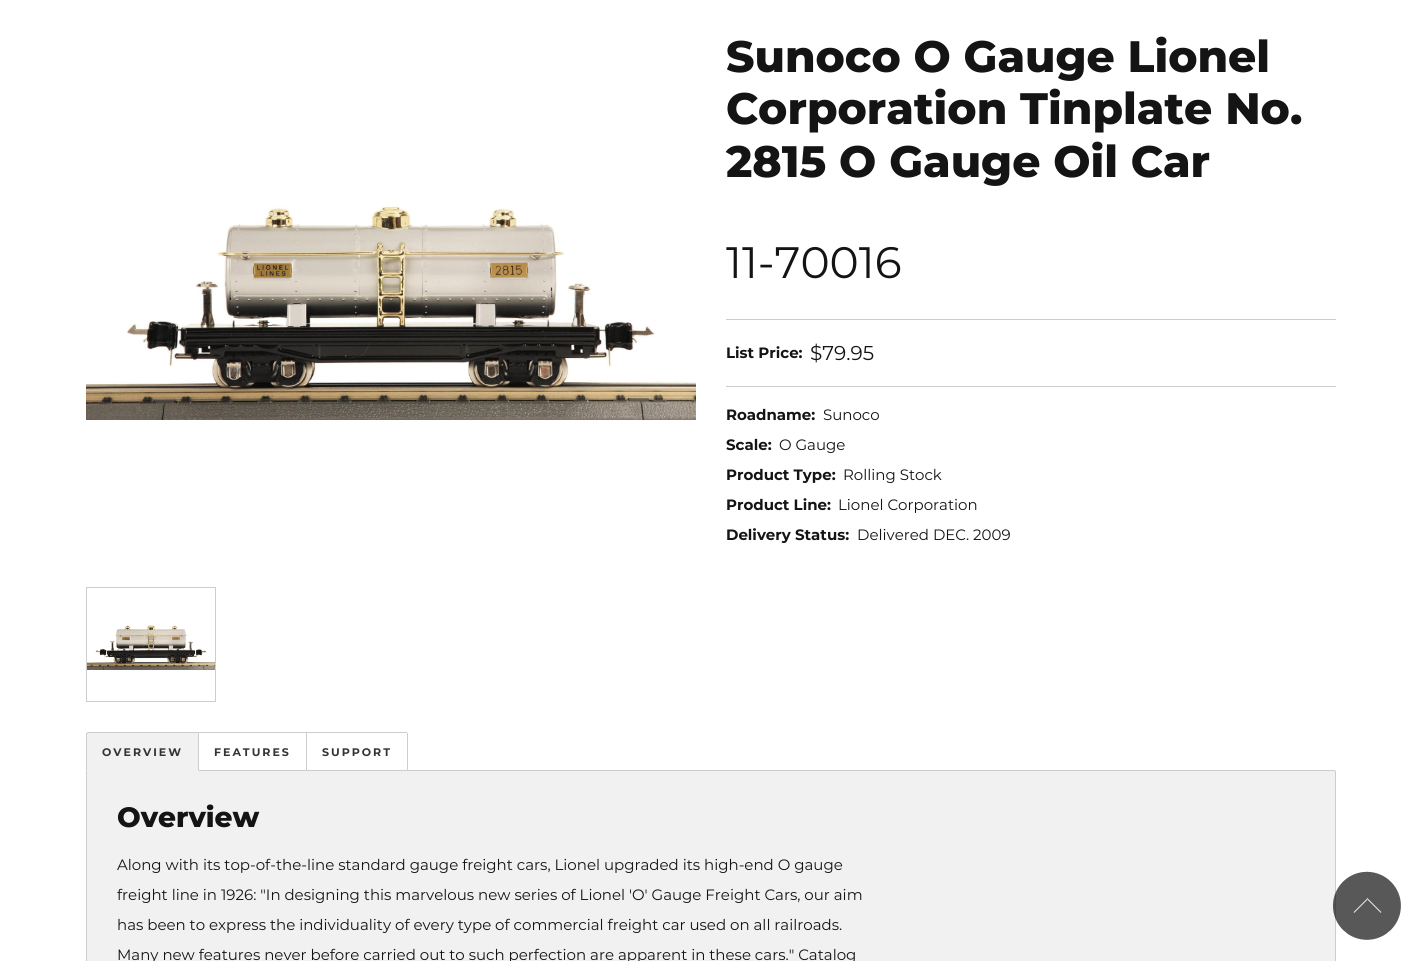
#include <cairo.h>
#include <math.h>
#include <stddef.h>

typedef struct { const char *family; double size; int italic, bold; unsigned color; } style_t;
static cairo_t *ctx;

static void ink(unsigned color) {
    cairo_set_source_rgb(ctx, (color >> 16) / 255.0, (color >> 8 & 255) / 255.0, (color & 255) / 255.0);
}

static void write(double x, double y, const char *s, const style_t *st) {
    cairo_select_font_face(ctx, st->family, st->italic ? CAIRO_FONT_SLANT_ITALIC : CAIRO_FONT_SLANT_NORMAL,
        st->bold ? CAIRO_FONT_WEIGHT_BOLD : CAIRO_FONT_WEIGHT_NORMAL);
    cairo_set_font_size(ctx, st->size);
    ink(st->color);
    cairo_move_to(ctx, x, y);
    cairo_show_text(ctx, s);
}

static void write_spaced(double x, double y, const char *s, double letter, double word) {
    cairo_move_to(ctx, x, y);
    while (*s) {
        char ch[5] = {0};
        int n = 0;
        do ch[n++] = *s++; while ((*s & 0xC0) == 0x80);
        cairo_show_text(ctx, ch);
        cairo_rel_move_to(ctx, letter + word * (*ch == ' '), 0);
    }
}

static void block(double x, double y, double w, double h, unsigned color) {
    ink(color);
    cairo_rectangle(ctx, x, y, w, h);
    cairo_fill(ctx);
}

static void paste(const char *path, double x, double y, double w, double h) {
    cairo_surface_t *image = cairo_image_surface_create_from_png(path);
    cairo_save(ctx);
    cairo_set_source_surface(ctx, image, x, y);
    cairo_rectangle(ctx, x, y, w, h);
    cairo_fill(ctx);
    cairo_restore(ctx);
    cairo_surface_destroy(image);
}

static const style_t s1 = {"Montserrat ExtraBold", 44, 0, 0, 0x141414};
static const style_t s2 = {"Montserrat", 44, 0, 0, 0x141414};
static const style_t s3 = {"Montserrat", 15, 0, 1, 0x141414};
static const style_t s4 = {"Montserrat", 20, 0, 0, 0x141414};
static const style_t s5 = {"Montserrat", 15, 0, 0, 0x141414};
static const style_t s6 = {"Montserrat ExtraBold", 28, 0, 0, 0x141414};

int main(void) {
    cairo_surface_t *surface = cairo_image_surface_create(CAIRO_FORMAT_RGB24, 1422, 961);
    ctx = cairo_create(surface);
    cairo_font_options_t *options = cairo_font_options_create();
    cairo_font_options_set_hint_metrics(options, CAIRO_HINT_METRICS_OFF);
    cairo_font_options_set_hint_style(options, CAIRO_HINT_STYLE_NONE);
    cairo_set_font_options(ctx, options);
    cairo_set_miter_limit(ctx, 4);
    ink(0xffffff);
    cairo_paint(ctx);
    paste("pic1.png", 86, 206, 610, 214);
    cairo_rectangle(ctx, 86.5, 587.5, 129, 114);
    ink(0xcdcdcd);
    cairo_set_line_width(ctx, 1);
    cairo_stroke(ctx);
    paste("pic2.png", 87, 625, 128, 45);
    write(726, 72, "Sunoco O Gauge Lionel", &s1);
    write(726, 124, "Corporation Tinplate No.", &s1);
    write(726, 177, "2815 O Gauge Oil Car", &s1);
    write(726, 278, "11-70016", &s2);
    block(726, 319, 610, 1, 0xcdcdcd);
    write(726, 358, "List Price:", &s3);
    write(810, 360, "$79.95", &s4);
    block(726, 386, 610, 1, 0xcdcdcd);
    write(726, 420, "Roadname:", &s3);
    write(823, 420, "Sunoco", &s5);
    write(726, 450, "Scale:", &s3);
    write(779, 450, "O Gauge", &s5);
    write(726, 480, "Product Type:", &s3);
    write(843, 480, "Rolling Stock", &s5);
    write(726, 510, "Product Line:", &s3);
    write(838, 510, "Lionel Corporation", &s5);
    write(726, 540, "Delivery Status:", &s3);
    write(857, 540, "Delivered DEC. 2009", &s5);
    ink(0xf1f1f1);
    cairo_new_path(ctx);
    cairo_move_to(ctx, 86.5, 770.5);
    cairo_line_to(ctx, 1334, 770.5);
    cairo_curve_to(ctx, 1335, 770.5, 1335.5, 771, 1335.5, 772);
    cairo_line_to(ctx, 1335.5, 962);
    cairo_curve_to(ctx, 1335.5, 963, 1335, 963.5, 1334, 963.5);
    cairo_line_to(ctx, 88, 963.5);
    cairo_curve_to(ctx, 87, 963.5, 86.5, 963, 86.5, 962);
    cairo_close_path(ctx);
    cairo_fill_preserve(ctx);
    ink(0xcdcdcd);
    cairo_stroke(ctx);
    ink(0xf1f1f1);
    cairo_new_path(ctx);
    cairo_move_to(ctx, 88, 732);
    cairo_line_to(ctx, 199, 732);
    cairo_line_to(ctx, 199, 771);
    cairo_line_to(ctx, 86, 771);
    cairo_line_to(ctx, 86, 734);
    cairo_curve_to(ctx, 86, 733, 87, 732, 88, 732);
    cairo_close_path(ctx);
    cairo_fill(ctx);
    ink(0xcdcdcd);
    cairo_new_path(ctx);
    cairo_move_to(ctx, 88, 732);
    cairo_line_to(ctx, 87, 733);
    cairo_line_to(ctx, 88, 734);
    cairo_line_to(ctx, 88, 733);
    cairo_line_to(ctx, 198, 733);
    cairo_line_to(ctx, 199, 732);
    cairo_close_path(ctx);
    cairo_fill(ctx);
    cairo_new_path(ctx);
    cairo_move_to(ctx, 199, 732);
    cairo_line_to(ctx, 198, 733);
    cairo_line_to(ctx, 198, 770);
    cairo_line_to(ctx, 199, 771);
    cairo_close_path(ctx);
    cairo_fill(ctx);
    cairo_new_path(ctx);
    cairo_move_to(ctx, 86, 771);
    cairo_line_to(ctx, 87, 770);
    cairo_line_to(ctx, 87, 734);
    cairo_line_to(ctx, 87.5, 733.5);
    cairo_line_to(ctx, 86.5, 732.5);
    cairo_line_to(ctx, 86, 734);
    cairo_close_path(ctx);
    cairo_fill(ctx);
    cairo_select_font_face(ctx, "Montserrat", CAIRO_FONT_SLANT_NORMAL, CAIRO_FONT_WEIGHT_BOLD);
    cairo_set_font_size(ctx, 11);
    ink(0x333333);
    write_spaced(102, 756, "OVERVIEW", 2, 0);
    block(199, 732, 108, 1, 0xcdcdcd);
    block(306, 732, 1, 39, 0xcdcdcd);
    ink(0x333333);
    write_spaced(214, 756, "FEATURES", 2, 0);
    ink(0xffffff);
    cairo_new_path(ctx);
    cairo_move_to(ctx, 307, 732);
    cairo_line_to(ctx, 406, 732);
    cairo_curve_to(ctx, 407, 732, 408, 733, 408, 734);
    cairo_line_to(ctx, 408, 771);
    cairo_line_to(ctx, 307, 771);
    cairo_close_path(ctx);
    cairo_fill(ctx);
    block(307, 732, 100, 1, 0xcdcdcd);
    block(407, 733, 1, 38, 0xcdcdcd);
    block(307, 770, 101, 1, 0xcdcdcd);
    ink(0x333333);
    write_spaced(322, 756, "SUPPORT", 2, 0);
    write(117, 827, "Overview", &s6);
    write(117, 870, "Along with its top-of-the-line standard gauge freight cars, Lionel upgraded its high-end O gauge", &s5);
    write(117, 900, "freight line in 1926: \"In designing this marvelous new series of Lionel 'O' Gauge Freight Cars, our aim", &s5);
    write(117, 930, "has been to express the individuality of every type of commercial freight car used on all railroads.", &s5);
    write(117, 960, "Many new features never before carried out to such perfection are apparent in these cars.\" Catalog", &s5);
    paste("pic3.png", 1332, 871, 69, 69);
    cairo_surface_write_to_png(surface, "screenshot.png");
    cairo_font_options_destroy(options);
    cairo_destroy(ctx);
    cairo_surface_destroy(surface);
    return 0;
}
